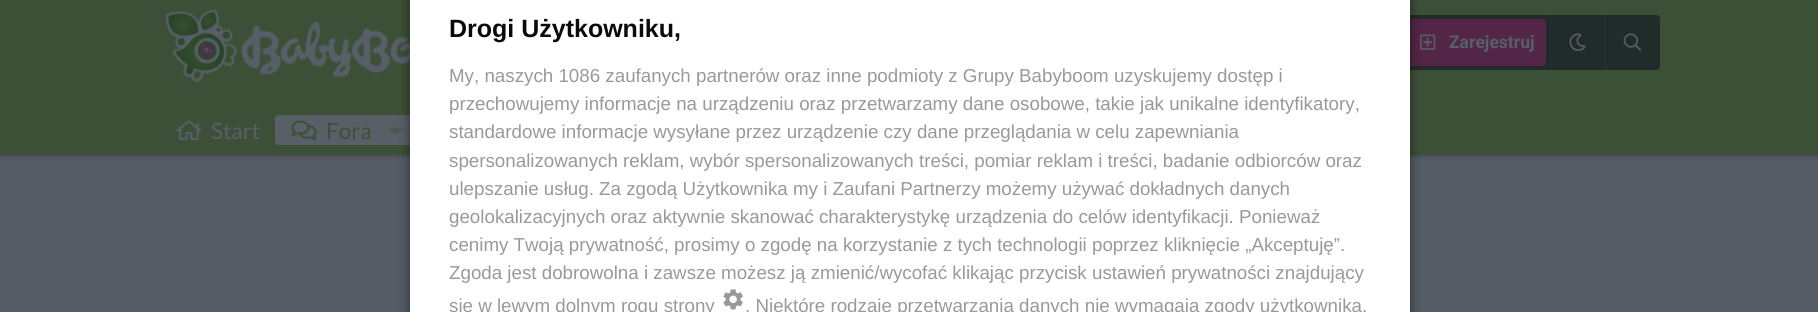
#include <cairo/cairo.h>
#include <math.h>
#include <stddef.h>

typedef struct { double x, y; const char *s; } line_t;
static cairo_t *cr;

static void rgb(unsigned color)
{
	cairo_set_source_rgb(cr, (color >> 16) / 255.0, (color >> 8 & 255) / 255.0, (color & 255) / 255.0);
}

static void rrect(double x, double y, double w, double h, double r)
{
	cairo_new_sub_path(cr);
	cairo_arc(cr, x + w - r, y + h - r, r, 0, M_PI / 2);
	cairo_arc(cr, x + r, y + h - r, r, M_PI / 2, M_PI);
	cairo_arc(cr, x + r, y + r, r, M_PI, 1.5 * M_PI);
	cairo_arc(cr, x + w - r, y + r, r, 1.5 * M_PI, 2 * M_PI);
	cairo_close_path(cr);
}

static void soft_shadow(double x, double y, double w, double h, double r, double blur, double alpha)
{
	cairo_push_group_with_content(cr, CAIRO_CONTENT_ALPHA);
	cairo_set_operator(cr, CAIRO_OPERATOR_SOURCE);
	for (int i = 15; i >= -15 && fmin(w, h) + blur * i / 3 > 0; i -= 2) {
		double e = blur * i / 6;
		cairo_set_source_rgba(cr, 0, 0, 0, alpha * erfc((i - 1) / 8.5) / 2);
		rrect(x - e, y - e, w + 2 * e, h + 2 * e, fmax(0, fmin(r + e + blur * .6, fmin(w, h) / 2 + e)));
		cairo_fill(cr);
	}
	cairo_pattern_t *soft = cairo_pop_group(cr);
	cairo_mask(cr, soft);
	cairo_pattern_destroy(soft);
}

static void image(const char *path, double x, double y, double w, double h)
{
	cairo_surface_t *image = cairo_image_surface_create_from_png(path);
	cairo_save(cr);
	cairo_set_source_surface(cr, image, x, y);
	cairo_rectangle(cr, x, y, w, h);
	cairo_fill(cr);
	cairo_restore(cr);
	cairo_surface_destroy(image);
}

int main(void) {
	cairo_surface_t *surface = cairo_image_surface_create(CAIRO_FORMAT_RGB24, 1818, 312);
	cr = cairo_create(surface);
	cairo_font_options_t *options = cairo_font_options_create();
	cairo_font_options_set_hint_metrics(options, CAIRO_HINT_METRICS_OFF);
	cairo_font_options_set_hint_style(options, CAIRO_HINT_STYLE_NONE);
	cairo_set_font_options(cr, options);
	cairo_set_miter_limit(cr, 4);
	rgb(0x565c65);
	cairo_paint(cr);
	rgb(0x191f27);
	soft_shadow(0, 1, 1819, 155, 0, 2, 0.35);
	rgb(0x3c5037);
	cairo_rectangle(cr, 0, 0, 1818, 155);
	cairo_fill(cr);
	image("img/2.png", 165, 9, 245, 74);
	rgb(0x2a382f);
	rrect(1279, 15, 381, 55, 4);
	cairo_fill(cr);
	cairo_set_source_rgba(cr, 0.098, 0.122, 0.153, 0.5);
	rrect(1279, 15, 381, 55, 4);
	cairo_fill(cr);
	rgb(0x532546);
	rrect(1405, 19, 141, 47, 4);
	cairo_fill(cr);
	image("img/3.png", 1420, 34, 16, 16);
	rgb(0x595f67);
	rrect(275, 115, 139, 30, 4);
	cairo_fill(cr);
	image("img/8.png", 389, 127, 14, 8);
	rgb(0x000000);
	soft_shadow(410, -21, 1000, 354, 2.5, 6, 0.5);
	rgb(0xffffff);
	cairo_rectangle(cr, 410, 0, 1000, 312);
	cairo_fill(cr);
	image("img/1.png", 723, 289, 20, 21);
	rgb(0x273031);
	cairo_rectangle(cr, 1550, 15, 1, 55);
	cairo_fill(cr);
	image("img/4.png", 1569, 33, 17, 18);
	cairo_rectangle(cr, 1605, 15, 1, 55);
	cairo_fill(cr);
	image("img/5.png", 1623, 33, 19, 18);
	image("img/6.png", 176, 120, 26, 21);
	image("img/7.png", 291, 120, 26, 21);
	cairo_select_font_face(cr, "Liberation Sans", CAIRO_FONT_SLANT_NORMAL, CAIRO_FONT_WEIGHT_BOLD);
	cairo_set_font_size(cr, 25);
	rgb(0x090a0a);
	cairo_move_to(cr, 449, 37);
	cairo_show_text(cr, "Drogi Użytkowniku,");
	cairo_select_font_face(cr, "Liberation Sans", CAIRO_FONT_SLANT_NORMAL, CAIRO_FONT_WEIGHT_NORMAL);
	cairo_set_font_size(cr, 18.75);
	rgb(0x999999);
	{
		static const line_t items[] = {
			{449, 82, "My, naszych 1086 zaufanych partnerów oraz inne podmioty z Grupy Babyboom uzyskujemy dostęp i"},
			{449, 110, "przechowujemy informacje na urządzeniu oraz przetwarzamy dane osobowe, takie jak unikalne identyfikatory,"},
			{449, 138, "standardowe informacje wysyłane przez urządzenie czy dane przeglądania w celu zapewniania"},
			{449, 167, "spersonalizowanych reklam, wybór spersonalizowanych treści, pomiar reklam i treści, badanie odbiorców oraz"},
			{449, 195, "ulepszanie usług. Za zgodą Użytkownika my i Zaufani Partnerzy możemy używać dokładnych danych"},
			{449, 223, "geolokalizacyjnych oraz aktywnie skanować charakterystykę urządzenia do celów identyfikacji. Ponieważ"},
			{449, 251, "cenimy Twoją prywatność, prosimy o zgodę na korzystanie z tych technologii poprzez kliknięcie „Akceptuję”."},
			{449, 279, "Zgoda jest dobrowolna i zawsze możesz ją zmienić/wycofać klikając przycisk ustawień prywatności znajdujący"},
			{449, 312, "się w lewym dolnym rogu strony"},
			{745, 312, ". Niektóre rodzaje przetwarzania danych nie wymagają zgody użytkownika,"},
		};
		for (size_t i = 0; i < sizeof items / sizeof *items; i++) {
			cairo_move_to(cr, items[i].x, items[i].y);
			cairo_show_text(cr, items[i].s);
		}
	}
	cairo_select_font_face(cr, "Roboto", CAIRO_FONT_SLANT_NORMAL, CAIRO_FONT_WEIGHT_BOLD);
	cairo_set_font_size(cr, 17.5);
	rgb(0x595f67);
	cairo_move_to(cr, 1449, 48);
	cairo_show_text(cr, "Zarejestruj");
	cairo_select_font_face(cr, "Lato", CAIRO_FONT_SLANT_NORMAL, CAIRO_FONT_WEIGHT_NORMAL);
	cairo_set_font_size(cr, 22.5);
	cairo_move_to(cr, 211, 139);
	cairo_show_text(cr, "Start");
	rgb(0x3c5037);
	cairo_move_to(cr, 326, 139);
	cairo_show_text(cr, "Fora");
	cairo_surface_write_to_png(surface, "page.png");
	cairo_font_options_destroy(options);
	cairo_destroy(cr);
	cairo_surface_destroy(surface);
	return 0;
}
